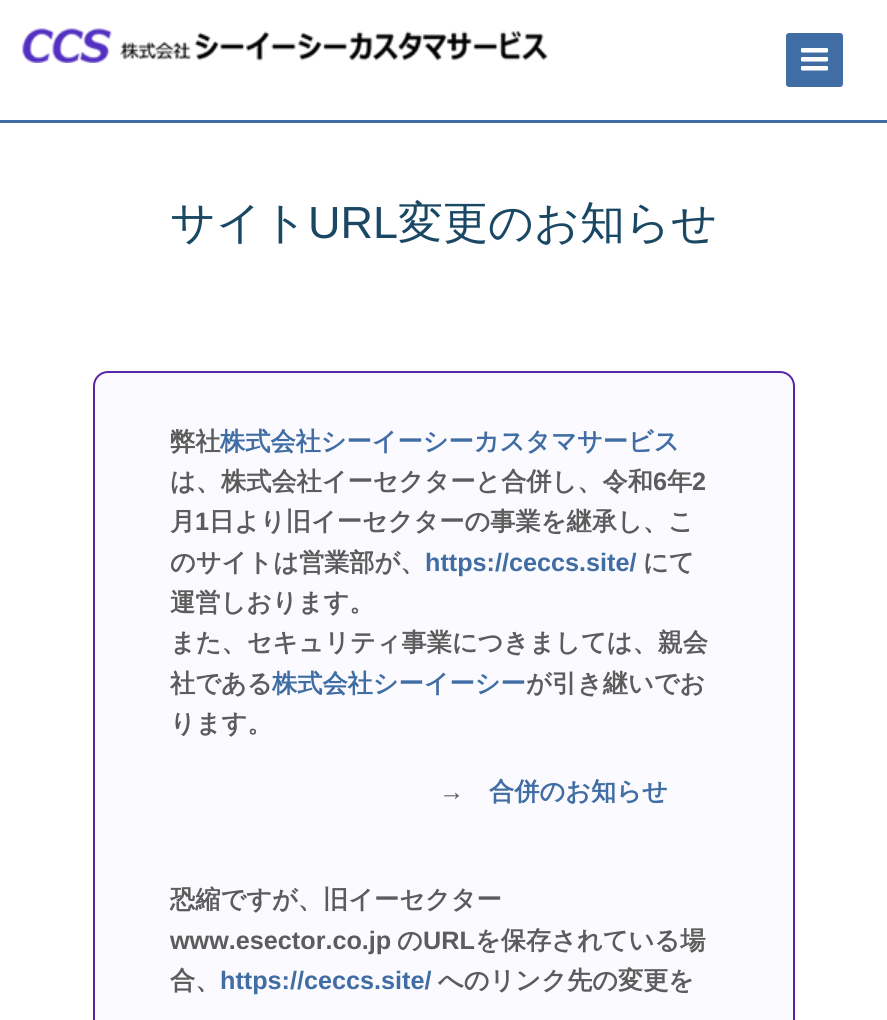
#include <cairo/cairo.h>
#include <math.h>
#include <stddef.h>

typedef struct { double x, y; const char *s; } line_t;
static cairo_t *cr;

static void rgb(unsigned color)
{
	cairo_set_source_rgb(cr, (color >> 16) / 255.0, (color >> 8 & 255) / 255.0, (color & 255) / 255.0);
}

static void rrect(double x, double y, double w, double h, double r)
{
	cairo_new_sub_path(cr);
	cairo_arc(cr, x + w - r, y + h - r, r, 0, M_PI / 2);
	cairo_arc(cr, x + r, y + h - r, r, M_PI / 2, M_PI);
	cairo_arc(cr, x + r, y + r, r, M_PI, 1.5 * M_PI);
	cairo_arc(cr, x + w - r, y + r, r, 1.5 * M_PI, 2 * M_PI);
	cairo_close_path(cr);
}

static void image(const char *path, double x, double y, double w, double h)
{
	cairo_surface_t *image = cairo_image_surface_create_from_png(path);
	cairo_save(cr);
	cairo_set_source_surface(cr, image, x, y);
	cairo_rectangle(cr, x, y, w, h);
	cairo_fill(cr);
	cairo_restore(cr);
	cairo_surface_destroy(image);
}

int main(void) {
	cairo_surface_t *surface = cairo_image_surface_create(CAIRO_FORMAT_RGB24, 887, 1020);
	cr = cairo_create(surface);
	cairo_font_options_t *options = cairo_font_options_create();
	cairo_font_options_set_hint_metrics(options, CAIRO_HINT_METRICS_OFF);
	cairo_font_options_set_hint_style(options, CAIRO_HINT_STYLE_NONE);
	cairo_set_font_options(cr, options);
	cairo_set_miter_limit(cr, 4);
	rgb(0xffffff);
	cairo_paint(cr);
	rgb(0x406da4);
	cairo_rectangle(cr, 0, 120, 887, 3);
	cairo_fill(cr);
	image("img/1.png", 22, 28, 526, 35);
	rrect(786, 33, 57, 54, 3);
	cairo_fill(cr);
	image("img/2.png", 801, 48, 27, 23);
	rgb(0xfbfafe);
	rrect(94, 372, 700, 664, 14);
	cairo_fill_preserve(cr);
	rgb(0x5826a8);
	cairo_stroke(cr);
	cairo_select_font_face(cr, "WenQuanYi Zen Hei Medium", CAIRO_FONT_SLANT_NORMAL, CAIRO_FONT_WEIGHT_NORMAL);
	cairo_set_font_size(cr, 45);
	rgb(0x1a4864);
	cairo_move_to(cr, 170, 238);
	cairo_show_text(cr, "サイト");
	cairo_select_font_face(cr, "Liberation Sans", CAIRO_FONT_SLANT_NORMAL, CAIRO_FONT_WEIGHT_NORMAL);
	cairo_move_to(cr, 308, 238);
	cairo_show_text(cr, "URL");
	cairo_select_font_face(cr, "WenQuanYi Zen Hei Medium", CAIRO_FONT_SLANT_NORMAL, CAIRO_FONT_WEIGHT_NORMAL);
	cairo_move_to(cr, 398, 238);
	cairo_show_text(cr, "変更のお知らせ");
	cairo_select_font_face(cr, "WenQuanYi Zen Hei", CAIRO_FONT_SLANT_NORMAL, CAIRO_FONT_WEIGHT_BOLD);
	cairo_set_font_size(cr, 25.2);
	rgb(0x5c5c5c);
	cairo_move_to(cr, 170, 450);
	cairo_show_text(cr, "弊社");
	rgb(0x406da4);
	cairo_move_to(cr, 220, 450);
	cairo_show_text(cr, "株式会社シーイーシーカスタマサービス");
	rgb(0x5c5c5c);
	cairo_move_to(cr, 170, 490);
	cairo_show_text(cr, "は、株式会社イーセクターと合併し、令和");
	cairo_select_font_face(cr, "Liberation Sans", CAIRO_FONT_SLANT_NORMAL, CAIRO_FONT_WEIGHT_BOLD);
	cairo_move_to(cr, 653, 490);
	cairo_show_text(cr, "6");
	cairo_select_font_face(cr, "WenQuanYi Zen Hei", CAIRO_FONT_SLANT_NORMAL, CAIRO_FONT_WEIGHT_BOLD);
	cairo_move_to(cr, 667, 490);
	cairo_show_text(cr, "年");
	cairo_select_font_face(cr, "Liberation Sans", CAIRO_FONT_SLANT_NORMAL, CAIRO_FONT_WEIGHT_BOLD);
	cairo_move_to(cr, 692, 490);
	cairo_show_text(cr, "2");
	cairo_select_font_face(cr, "WenQuanYi Zen Hei", CAIRO_FONT_SLANT_NORMAL, CAIRO_FONT_WEIGHT_BOLD);
	cairo_move_to(cr, 170, 530);
	cairo_show_text(cr, "月");
	cairo_select_font_face(cr, "Liberation Sans", CAIRO_FONT_SLANT_NORMAL, CAIRO_FONT_WEIGHT_BOLD);
	cairo_move_to(cr, 195, 530);
	cairo_show_text(cr, "1");
	cairo_select_font_face(cr, "WenQuanYi Zen Hei", CAIRO_FONT_SLANT_NORMAL, CAIRO_FONT_WEIGHT_BOLD);
	cairo_move_to(cr, 209, 530);
	cairo_show_text(cr, "日より旧イーセクターの事業を継承し、こ");
	cairo_move_to(cr, 170, 571);
	cairo_show_text(cr, "のサイトは営業部が、");
	cairo_select_font_face(cr, "Liberation Sans", CAIRO_FONT_SLANT_NORMAL, CAIRO_FONT_WEIGHT_BOLD);
	rgb(0x406da4);
	cairo_move_to(cr, 425, 571);
	cairo_show_text(cr, "https://ceccs.site/");
	cairo_select_font_face(cr, "WenQuanYi Zen Hei", CAIRO_FONT_SLANT_NORMAL, CAIRO_FONT_WEIGHT_BOLD);
	rgb(0x5c5c5c);
	{
		static const line_t items[] = {
			{643, 571, "にて"},
			{170, 611, "運営しおります。"},
			{170, 651, "また、セキュリティ事業につきましては、親会"},
			{170, 692, "社である"},
		};
		for (size_t i = 0; i < sizeof items / sizeof *items; i++) {
			cairo_move_to(cr, items[i].x, items[i].y);
			cairo_show_text(cr, items[i].s);
		}
	}
	rgb(0x406da4);
	cairo_move_to(cr, 272, 692);
	cairo_show_text(cr, "株式会社シーイーシー");
	rgb(0x5c5c5c);
	cairo_move_to(cr, 526, 692);
	cairo_show_text(cr, "が引き継いでお");
	cairo_move_to(cr, 170, 732);
	cairo_show_text(cr, "ります。");
	cairo_select_font_face(cr, "Liberation Sans", CAIRO_FONT_SLANT_NORMAL, CAIRO_FONT_WEIGHT_BOLD);
	cairo_move_to(cr, 439, 800);
	cairo_show_text(cr, "→");
	cairo_select_font_face(cr, "WenQuanYi Zen Hei", CAIRO_FONT_SLANT_NORMAL, CAIRO_FONT_WEIGHT_BOLD);
	rgb(0x406da4);
	cairo_move_to(cr, 489, 800);
	cairo_show_text(cr, "合併のお知らせ");
	rgb(0x5c5c5c);
	cairo_move_to(cr, 170, 908);
	cairo_show_text(cr, "恐縮ですが、旧イーセクター");
	cairo_select_font_face(cr, "Liberation Sans", CAIRO_FONT_SLANT_NORMAL, CAIRO_FONT_WEIGHT_BOLD);
	cairo_move_to(cr, 170, 949);
	cairo_show_text(cr, "www.esector.co.jp");
	cairo_select_font_face(cr, "WenQuanYi Zen Hei", CAIRO_FONT_SLANT_NORMAL, CAIRO_FONT_WEIGHT_BOLD);
	cairo_move_to(cr, 397, 949);
	cairo_show_text(cr, "の");
	cairo_select_font_face(cr, "Liberation Sans", CAIRO_FONT_SLANT_NORMAL, CAIRO_FONT_WEIGHT_BOLD);
	cairo_move_to(cr, 423, 949);
	cairo_show_text(cr, "URL");
	cairo_select_font_face(cr, "WenQuanYi Zen Hei", CAIRO_FONT_SLANT_NORMAL, CAIRO_FONT_WEIGHT_BOLD);
	cairo_move_to(cr, 475, 949);
	cairo_show_text(cr, "を保存されている場");
	cairo_move_to(cr, 170, 989);
	cairo_show_text(cr, "合、");
	cairo_select_font_face(cr, "Liberation Sans", CAIRO_FONT_SLANT_NORMAL, CAIRO_FONT_WEIGHT_BOLD);
	rgb(0x406da4);
	cairo_move_to(cr, 220, 989);
	cairo_show_text(cr, "https://ceccs.site/");
	cairo_select_font_face(cr, "WenQuanYi Zen Hei", CAIRO_FONT_SLANT_NORMAL, CAIRO_FONT_WEIGHT_BOLD);
	rgb(0x5c5c5c);
	cairo_move_to(cr, 438, 989);
	cairo_show_text(cr, "へのリンク先の変更を");
	cairo_surface_write_to_png(surface, "page.png");
	cairo_font_options_destroy(options);
	cairo_destroy(cr);
	cairo_surface_destroy(surface);
	return 0;
}
